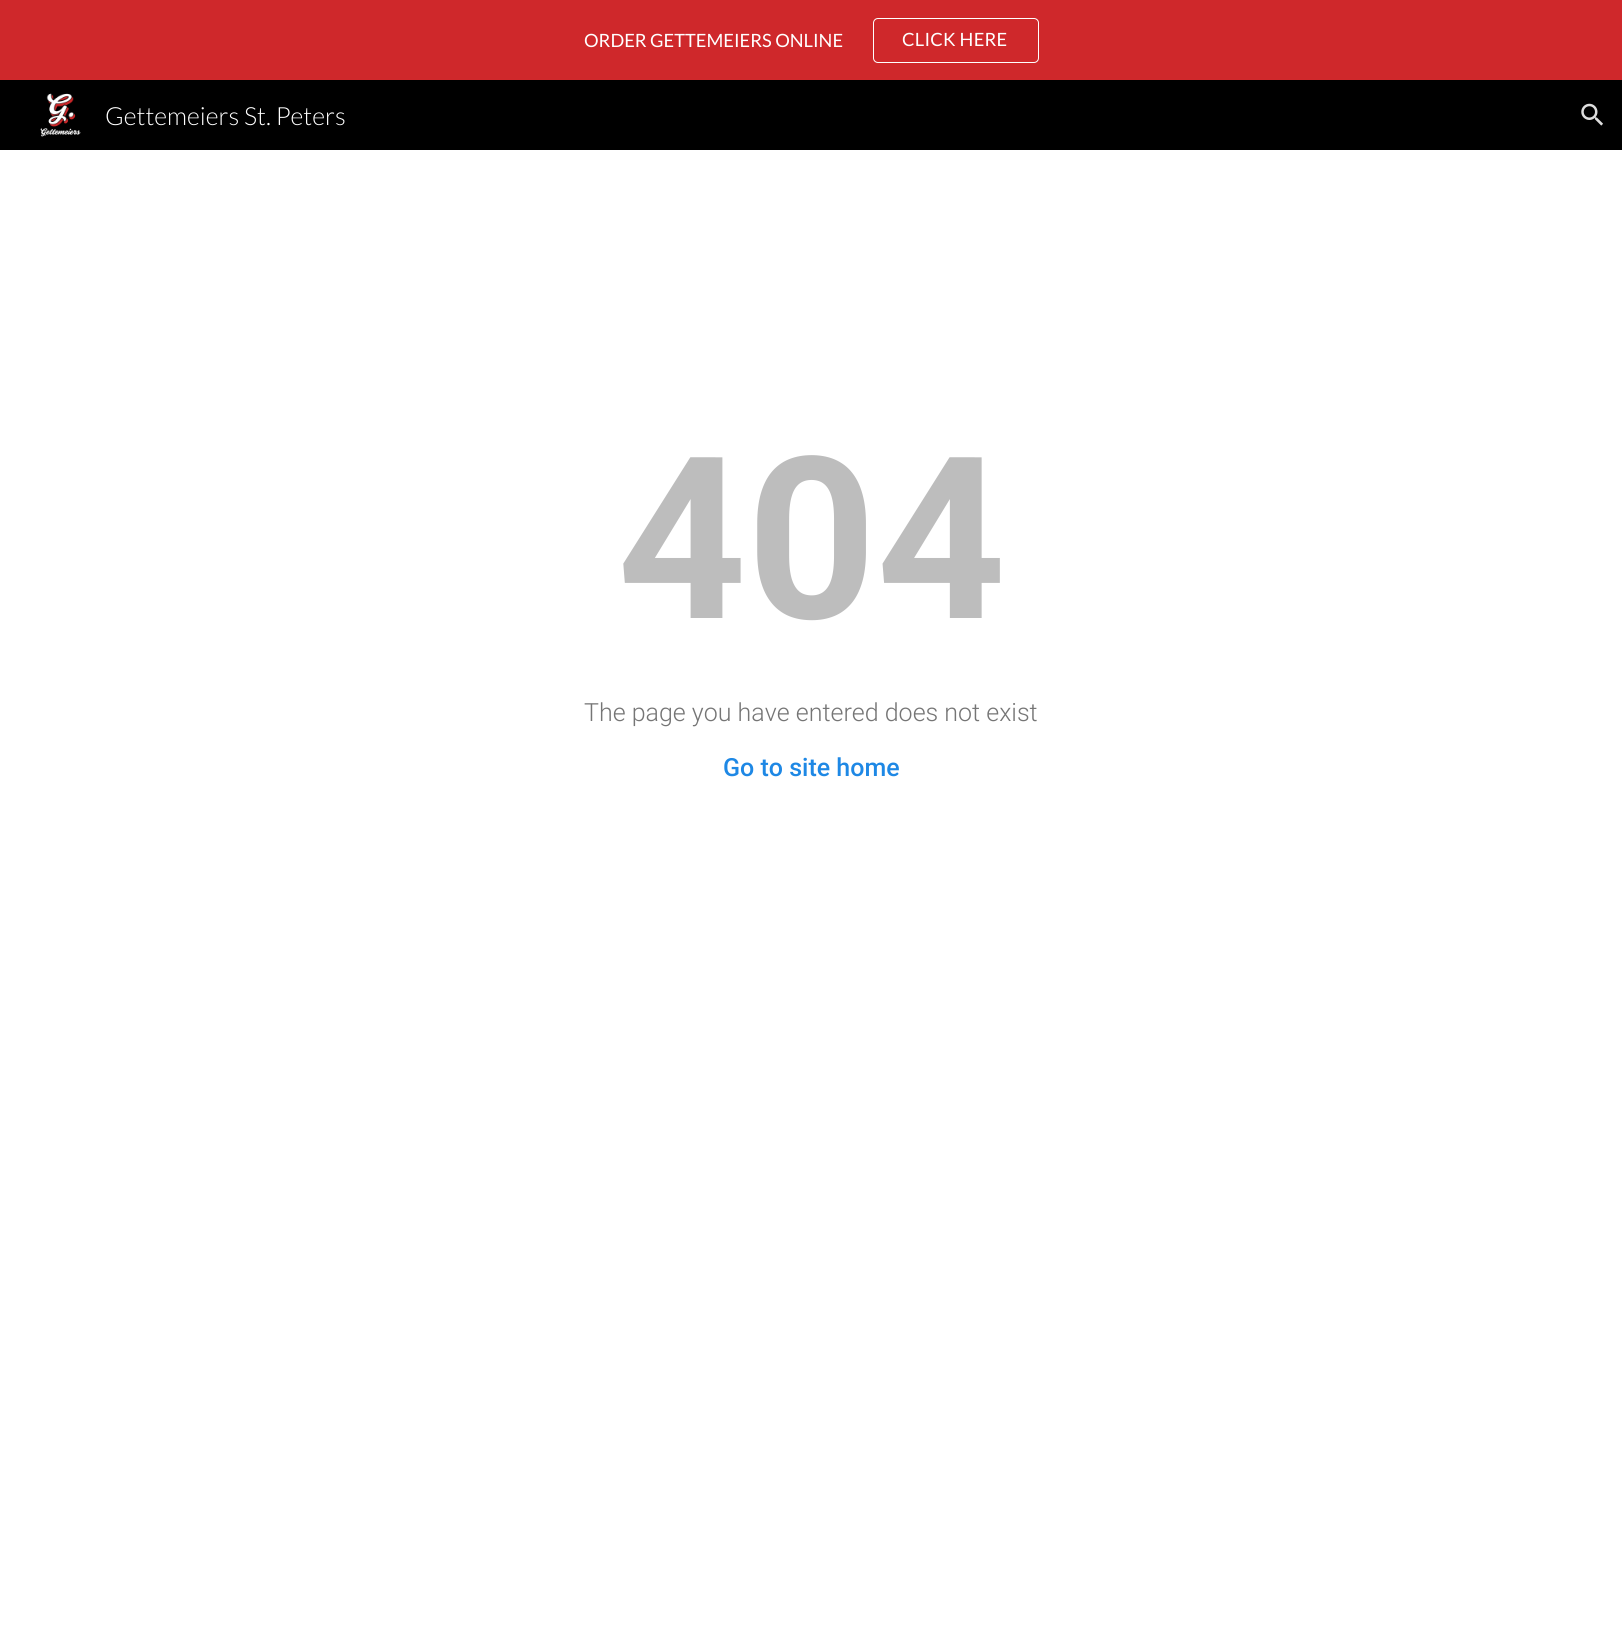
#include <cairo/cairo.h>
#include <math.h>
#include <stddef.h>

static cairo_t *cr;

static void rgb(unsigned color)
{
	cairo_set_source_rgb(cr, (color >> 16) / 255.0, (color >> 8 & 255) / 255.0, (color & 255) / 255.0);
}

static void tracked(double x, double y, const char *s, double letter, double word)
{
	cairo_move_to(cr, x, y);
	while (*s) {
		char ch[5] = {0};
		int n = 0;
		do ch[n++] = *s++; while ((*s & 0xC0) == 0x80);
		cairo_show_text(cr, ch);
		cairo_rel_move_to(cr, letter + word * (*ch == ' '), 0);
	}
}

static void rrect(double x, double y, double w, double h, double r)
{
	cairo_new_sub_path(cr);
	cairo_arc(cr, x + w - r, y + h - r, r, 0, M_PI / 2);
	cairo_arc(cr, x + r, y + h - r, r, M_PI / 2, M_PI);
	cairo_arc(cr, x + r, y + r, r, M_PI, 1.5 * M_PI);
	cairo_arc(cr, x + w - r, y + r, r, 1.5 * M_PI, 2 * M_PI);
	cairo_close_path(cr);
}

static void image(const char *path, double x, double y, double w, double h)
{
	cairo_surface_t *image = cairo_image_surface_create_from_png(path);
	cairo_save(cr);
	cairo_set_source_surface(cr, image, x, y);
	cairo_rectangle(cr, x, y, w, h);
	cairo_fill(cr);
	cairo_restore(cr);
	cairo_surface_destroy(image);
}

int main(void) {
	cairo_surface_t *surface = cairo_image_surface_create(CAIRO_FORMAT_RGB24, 1622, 1626);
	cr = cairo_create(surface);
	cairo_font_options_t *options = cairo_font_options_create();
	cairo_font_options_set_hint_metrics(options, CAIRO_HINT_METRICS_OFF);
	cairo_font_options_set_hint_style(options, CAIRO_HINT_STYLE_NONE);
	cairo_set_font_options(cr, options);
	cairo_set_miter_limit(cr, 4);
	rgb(0xffffff);
	cairo_paint(cr);
	rgb(0xcf282b);
	cairo_rectangle(cr, 0, 0, 1622, 80);
	cairo_fill(cr);
	rrect(873.5, 18.5, 165, 44, 4.5);
	rgb(0xffffff);
	cairo_set_line_width(cr, 1);
	cairo_stroke(cr);
	rgb(0x000000);
	cairo_rectangle(cr, 0, 80, 1622, 70);
	cairo_fill(cr);
	image("img/1.png", 40, 93, 41, 44);
	image("img/2.png", 1581, 103, 22, 23);
	cairo_select_font_face(cr, "Lato", CAIRO_FONT_SLANT_NORMAL, CAIRO_FONT_WEIGHT_NORMAL);
	cairo_set_font_size(cr, 18.3);
	rgb(0xffffff);
	cairo_move_to(cr, 584, 47);
	cairo_show_text(cr, "ORDER GETTEMEIERS ONLINE");
	tracked(902, 46, "CLICK HERE", 0.25, 0);
	cairo_select_font_face(cr, "Lato Light", CAIRO_FONT_SLANT_NORMAL, CAIRO_FONT_WEIGHT_NORMAL);
	cairo_set_font_size(cr, 25);
	cairo_move_to(cr, 105, 125);
	cairo_show_text(cr, "Gettemeiers St. Peters");
	cairo_select_font_face(cr, "Roboto", CAIRO_FONT_SLANT_NORMAL, CAIRO_FONT_WEIGHT_BOLD);
	cairo_set_font_size(cr, 226);
	rgb(0xbdbdbd);
	cairo_move_to(cr, 617, 618);
	cairo_show_text(cr, "404");
	cairo_select_font_face(cr, "Roboto Light", CAIRO_FONT_SLANT_NORMAL, CAIRO_FONT_WEIGHT_NORMAL);
	cairo_set_font_size(cr, 25);
	rgb(0x757575);
	cairo_move_to(cr, 584, 721);
	cairo_show_text(cr, "The page you have entered does not exist");
	cairo_select_font_face(cr, "Roboto Medium", CAIRO_FONT_SLANT_NORMAL, CAIRO_FONT_WEIGHT_NORMAL);
	rgb(0x1e88e5);
	cairo_move_to(cr, 723, 776);
	cairo_show_text(cr, "Go to site home");
	cairo_surface_write_to_png(surface, "page.png");
	cairo_font_options_destroy(options);
	cairo_destroy(cr);
	cairo_surface_destroy(surface);
	return 0;
}
